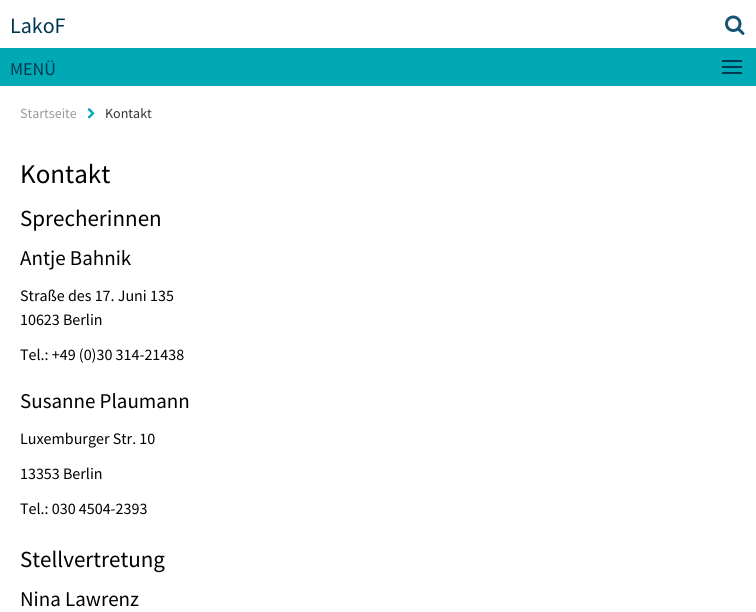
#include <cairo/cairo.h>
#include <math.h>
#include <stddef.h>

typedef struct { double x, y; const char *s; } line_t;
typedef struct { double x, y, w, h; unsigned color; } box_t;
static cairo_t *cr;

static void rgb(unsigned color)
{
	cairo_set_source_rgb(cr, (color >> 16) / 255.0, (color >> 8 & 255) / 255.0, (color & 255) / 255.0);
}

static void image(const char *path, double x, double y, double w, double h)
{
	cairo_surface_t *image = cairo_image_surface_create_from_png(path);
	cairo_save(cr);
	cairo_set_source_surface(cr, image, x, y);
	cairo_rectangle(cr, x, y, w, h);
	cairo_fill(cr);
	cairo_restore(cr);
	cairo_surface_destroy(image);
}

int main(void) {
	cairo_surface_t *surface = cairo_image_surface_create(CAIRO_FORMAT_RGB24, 756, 612);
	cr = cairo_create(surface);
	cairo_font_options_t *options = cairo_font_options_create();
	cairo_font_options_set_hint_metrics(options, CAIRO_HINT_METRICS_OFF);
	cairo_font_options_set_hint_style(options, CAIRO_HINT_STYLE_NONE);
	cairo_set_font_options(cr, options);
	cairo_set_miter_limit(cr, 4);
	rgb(0xffffff);
	cairo_paint(cr);
	image("img/1.png", 725, 15, 20, 20);
	{
		static const box_t items[] = {
			{0, 48, 756, 38, 0x00a9b3},
			{722, 60, 20, 2, 0x003750},
			{722, 66, 20, 2, 0x003750},
			{722, 72, 20, 2, 0x003750},
		};
		for (size_t i = 0; i < sizeof items / sizeof *items; i++) {
			rgb(items[i].color);
			cairo_rectangle(cr, items[i].x, items[i].y, items[i].w, items[i].h);
			cairo_fill(cr);
		}
	}
	image("img/2.png", 87, 108, 8, 11);
	cairo_select_font_face(cr, "Source Sans Pro", CAIRO_FONT_SLANT_NORMAL, CAIRO_FONT_WEIGHT_NORMAL);
	cairo_set_font_size(cr, 22);
	cairo_move_to(cr, 10, 33);
	cairo_show_text(cr, "LakoF");
	cairo_set_font_size(cr, 18);
	cairo_move_to(cr, 10, 75);
	cairo_show_text(cr, "MENÜ");
	cairo_set_font_size(cr, 14);
	rgb(0x999999);
	cairo_move_to(cr, 20, 118);
	cairo_show_text(cr, "Startseite");
	rgb(0x333333);
	cairo_move_to(cr, 105, 118);
	cairo_show_text(cr, "Kontakt");
	cairo_set_font_size(cr, 27);
	rgb(0x000000);
	cairo_move_to(cr, 20, 183);
	cairo_show_text(cr, "Kontakt");
	cairo_set_font_size(cr, 23);
	cairo_move_to(cr, 20, 226);
	cairo_show_text(cr, "Sprecherinnen");
	cairo_set_font_size(cr, 21);
	cairo_move_to(cr, 20, 265);
	cairo_show_text(cr, "Antje Bahnik");
	cairo_set_font_size(cr, 16);
	{
		static const line_t items[] = {
			{20, 301, "Straße des 17. Juni 135"},
			{20, 325, "10623 Berlin"},
			{20, 360, "Tel.: +49 (0)30 314-21438"},
		};
		for (size_t i = 0; i < sizeof items / sizeof *items; i++) {
			cairo_move_to(cr, items[i].x, items[i].y);
			cairo_show_text(cr, items[i].s);
		}
	}
	cairo_set_font_size(cr, 21);
	cairo_move_to(cr, 20, 408);
	cairo_show_text(cr, "Susanne Plaumann");
	cairo_set_font_size(cr, 16);
	{
		static const line_t items[] = {
			{20, 444, "Luxemburger Str. 10"},
			{20, 479, "13353 Berlin"},
			{20, 514, "Tel.: 030 4504-2393"},
		};
		for (size_t i = 0; i < sizeof items / sizeof *items; i++) {
			cairo_move_to(cr, items[i].x, items[i].y);
			cairo_show_text(cr, items[i].s);
		}
	}
	cairo_set_font_size(cr, 23);
	cairo_move_to(cr, 20, 567);
	cairo_show_text(cr, "Stellvertretung");
	cairo_set_font_size(cr, 21);
	cairo_move_to(cr, 20, 606);
	cairo_show_text(cr, "Nina Lawrenz");
	cairo_surface_write_to_png(surface, "page.png");
	cairo_font_options_destroy(options);
	cairo_destroy(cr);
	cairo_surface_destroy(surface);
	return 0;
}
